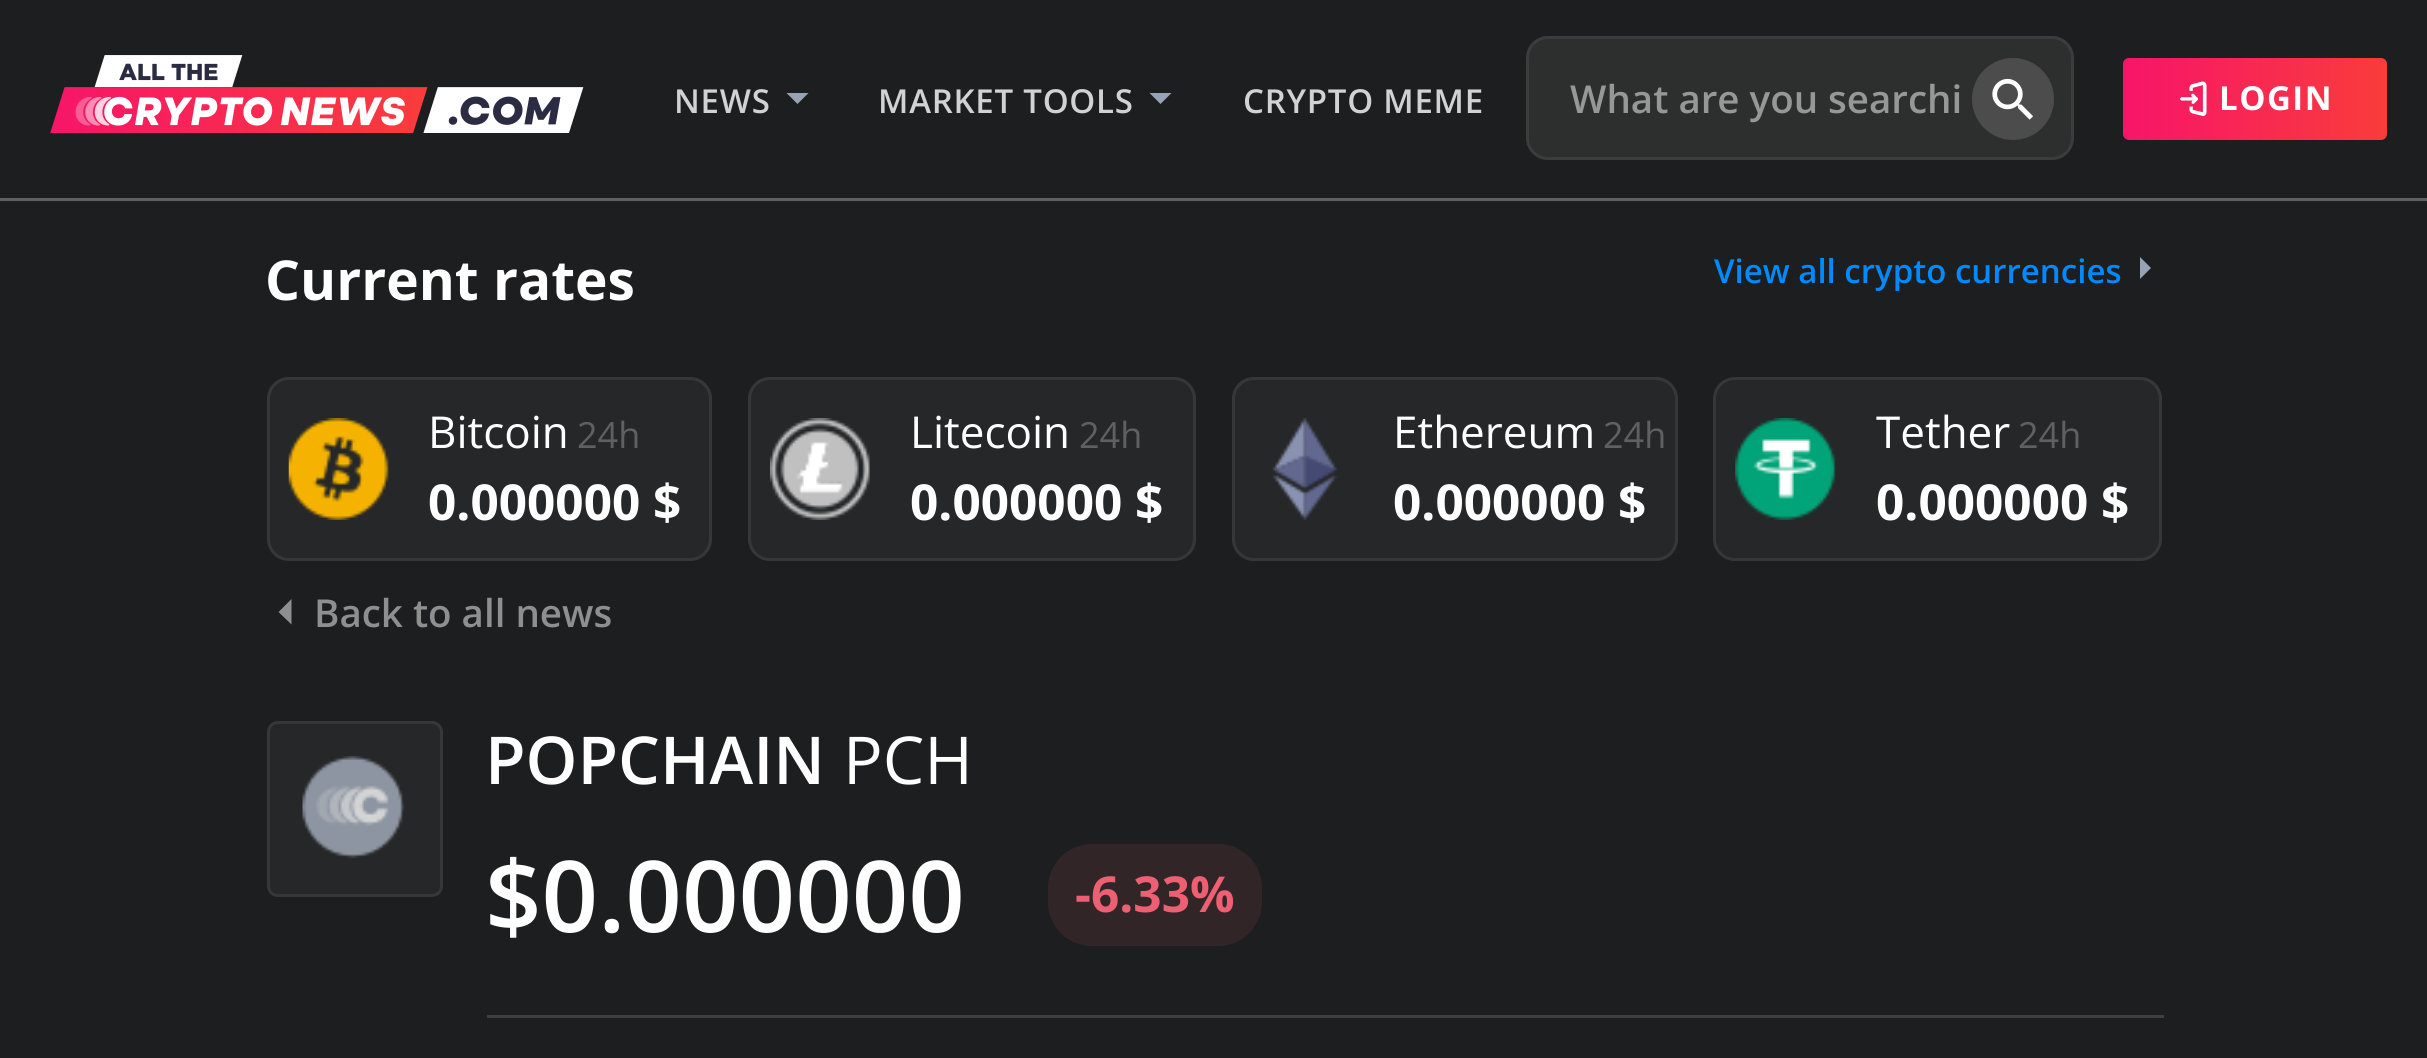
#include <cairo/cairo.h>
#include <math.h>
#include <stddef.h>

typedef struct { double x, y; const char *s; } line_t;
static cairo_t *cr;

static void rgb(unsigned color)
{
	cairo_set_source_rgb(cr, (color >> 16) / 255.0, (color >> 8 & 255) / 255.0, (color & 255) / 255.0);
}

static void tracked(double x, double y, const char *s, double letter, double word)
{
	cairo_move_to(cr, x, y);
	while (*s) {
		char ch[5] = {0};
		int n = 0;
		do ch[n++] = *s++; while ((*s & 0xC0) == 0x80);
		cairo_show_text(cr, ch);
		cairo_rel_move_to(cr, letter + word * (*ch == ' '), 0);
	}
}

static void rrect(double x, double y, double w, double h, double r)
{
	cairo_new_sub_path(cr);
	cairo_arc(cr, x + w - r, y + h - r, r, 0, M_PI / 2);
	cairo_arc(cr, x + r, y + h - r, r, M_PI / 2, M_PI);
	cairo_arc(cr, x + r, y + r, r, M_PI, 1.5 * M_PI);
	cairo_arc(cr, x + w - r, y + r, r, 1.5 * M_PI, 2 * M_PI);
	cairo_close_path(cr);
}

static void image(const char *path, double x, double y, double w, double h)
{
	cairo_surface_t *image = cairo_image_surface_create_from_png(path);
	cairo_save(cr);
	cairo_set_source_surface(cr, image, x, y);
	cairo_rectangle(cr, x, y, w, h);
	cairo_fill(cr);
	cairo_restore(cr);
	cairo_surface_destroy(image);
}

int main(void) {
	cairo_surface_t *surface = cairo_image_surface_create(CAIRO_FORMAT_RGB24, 2427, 1058);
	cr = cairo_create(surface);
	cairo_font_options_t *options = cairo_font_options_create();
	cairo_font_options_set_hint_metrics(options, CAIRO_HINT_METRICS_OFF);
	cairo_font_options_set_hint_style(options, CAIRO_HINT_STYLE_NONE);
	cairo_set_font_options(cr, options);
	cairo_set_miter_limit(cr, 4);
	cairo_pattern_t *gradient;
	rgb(0x1d1e1f);
	cairo_paint(cr);
	rgb(0x5f5f60);
	cairo_rectangle(cr, 0, 198, 2427, 3);
	cairo_fill(cr);
	image("img/1.png", 50, 55, 534, 78);
	rgb(0x97a3b4);
	cairo_new_path(cr);
	cairo_move_to(cr, 786.5, 93);
	cairo_line_to(cr, 797.5, 104);
	cairo_line_to(cr, 808.5, 93);
	cairo_close_path(cr);
	cairo_fill(cr);
	cairo_new_path(cr);
	cairo_move_to(cr, 1149.5, 93);
	cairo_line_to(cr, 1160.5, 104);
	cairo_line_to(cr, 1171.5, 93);
	cairo_close_path(cr);
	cairo_fill(cr);
	rgb(0x2d2e2e);
	rrect(1526, 36, 548, 124, 22);
	cairo_fill(cr);
	rrect(1527.5, 37.5, 545, 121, 20.5);
	cairo_set_source_rgba(cr, 0.373, 0.373, 0.373, 0.3);
	cairo_set_line_width(cr, 3);
	cairo_stroke(cr);
	rgb(0x4c4c4c);
	cairo_arc(cr, 2013, 99, 41, 0, 2 * M_PI);
	cairo_fill(cr);
	image("img/2.png", 1992, 78, 41, 42);
	gradient = cairo_pattern_create_linear(2123, 99, 2387, 99);
	cairo_pattern_add_color_stop_rgba(gradient, 0, 0.969, 0.082, 0.412, 1);
	cairo_pattern_add_color_stop_rgba(gradient, 1, 0.976, 0.235, 0.231, 1);
	cairo_set_source(cr, gradient);
	cairo_pattern_destroy(gradient);
	rrect(2123, 58, 264, 82, 6);
	cairo_fill(cr);
	image("img/3.png", 2180, 81, 27, 35);
	rgb(0x97a3b4);
	cairo_new_path(cr);
	cairo_move_to(cr, 2140, 279);
	cairo_line_to(cr, 2151, 268);
	cairo_line_to(cr, 2140, 257);
	cairo_close_path(cr);
	cairo_fill(cr);
	rgb(0x262728);
	rrect(267, 377, 445, 184, 22);
	cairo_fill(cr);
	rrect(268.5, 378.5, 442, 181, 20.5);
	cairo_set_source_rgba(cr, 0.373, 0.373, 0.373, 0.3);
	cairo_stroke(cr);
	image("img/4.png", 288, 418, 101, 102);
	rgb(0x262728);
	rrect(748, 377, 448, 184, 22);
	cairo_fill(cr);
	rrect(749.5, 378.5, 445, 181, 20.5);
	cairo_set_source_rgba(cr, 0.373, 0.373, 0.373, 0.3);
	cairo_stroke(cr);
	image("img/5.png", 770, 418, 100, 102);
	rgb(0x262728);
	rrect(1232, 377, 446, 184, 22);
	cairo_fill(cr);
	rrect(1233.5, 378.5, 443, 181, 20.5);
	cairo_set_source_rgba(cr, 0.373, 0.373, 0.373, 0.3);
	cairo_stroke(cr);
	image("img/6.png", 1272, 418, 66, 102);
	rgb(0x262728);
	rrect(1713, 377, 449, 184, 22);
	cairo_fill(cr);
	rrect(1714.5, 378.5, 446, 181, 20.5);
	cairo_set_source_rgba(cr, 0.373, 0.373, 0.373, 0.3);
	cairo_stroke(cr);
	image("img/7.png", 1735, 418, 101, 102);
	rgb(0x8e8f8f);
	cairo_new_path(cr);
	cairo_move_to(cr, 291.5, 599);
	cairo_line_to(cr, 278.5, 612);
	cairo_line_to(cr, 291.5, 624.5);
	cairo_close_path(cr);
	cairo_fill(cr);
	rgb(0x262728);
	rrect(267, 721, 176, 176, 11);
	cairo_fill(cr);
	rrect(268.5, 722.5, 173, 173, 9.5);
	cairo_set_source_rgba(cr, 0.373, 0.373, 0.373, 0.3);
	cairo_stroke(cr);
	image("img/8.png", 302, 756, 103, 102);
	rgb(0x322527);
	rrect(1048, 844, 214, 102, 44);
	cairo_fill(cr);
	rgb(0x3f3f40);
	cairo_rectangle(cr, 487, 1015, 1677, 3);
	cairo_fill(cr);
	cairo_select_font_face(cr, "Open Sans SemiBold", CAIRO_FONT_SLANT_NORMAL, CAIRO_FONT_WEIGHT_NORMAL);
	cairo_set_font_size(cr, 33);
	rgb(0xd2d2d2);
	{
		static const line_t items[] = {
			{674, 113, "NEWS"},
			{878, 113, "MARKET TOOLS"},
			{1243, 113, "CRYPTO MEME"},
		};
		for (size_t i = 0; i < sizeof items / sizeof *items; i++) {
			tracked(items[i].x, items[i].y, items[i].s, 0.75, 0);
		}
	}
	cairo_set_font_size(cr, 38.5);
	rgb(0x969797);
	cairo_move_to(cr, 1570, 113);
	cairo_show_text(cr, "What are you searchi");
	cairo_select_font_face(cr, "Open Sans", CAIRO_FONT_SLANT_NORMAL, CAIRO_FONT_WEIGHT_BOLD);
	cairo_set_font_size(cr, 33);
	rgb(0xffffff);
	tracked(2219, 110, "LOGIN", 1.5, 0);
	cairo_set_font_size(cr, 55);
	cairo_move_to(cr, 265, 300);
	cairo_show_text(cr, "Current rates");
	cairo_select_font_face(cr, "Open Sans SemiBold", CAIRO_FONT_SLANT_NORMAL, CAIRO_FONT_WEIGHT_NORMAL);
	cairo_set_font_size(cr, 33);
	rgb(0x008aff);
	cairo_move_to(cr, 1714, 283);
	cairo_show_text(cr, "View all crypto currencies");
	cairo_select_font_face(cr, "Open Sans", CAIRO_FONT_SLANT_NORMAL, CAIRO_FONT_WEIGHT_NORMAL);
	cairo_set_font_size(cr, 44);
	rgb(0xffffff);
	cairo_move_to(cr, 428, 448);
	cairo_show_text(cr, "Bitcoin");
	cairo_set_font_size(cr, 36);
	rgb(0x606062);
	cairo_move_to(cr, 577, 448);
	cairo_show_text(cr, "24h");
	cairo_select_font_face(cr, "Open Sans", CAIRO_FONT_SLANT_NORMAL, CAIRO_FONT_WEIGHT_BOLD);
	cairo_set_font_size(cr, 49.5);
	rgb(0xffffff);
	cairo_move_to(cr, 428, 520);
	cairo_show_text(cr, "0.000000 $");
	cairo_select_font_face(cr, "Open Sans", CAIRO_FONT_SLANT_NORMAL, CAIRO_FONT_WEIGHT_NORMAL);
	cairo_set_font_size(cr, 44);
	cairo_move_to(cr, 910, 448);
	cairo_show_text(cr, "Litecoin");
	cairo_set_font_size(cr, 36);
	rgb(0x606062);
	cairo_move_to(cr, 1079, 448);
	cairo_show_text(cr, "24h");
	cairo_select_font_face(cr, "Open Sans", CAIRO_FONT_SLANT_NORMAL, CAIRO_FONT_WEIGHT_BOLD);
	cairo_set_font_size(cr, 49.5);
	rgb(0xffffff);
	cairo_move_to(cr, 910, 520);
	cairo_show_text(cr, "0.000000 $");
	cairo_select_font_face(cr, "Open Sans", CAIRO_FONT_SLANT_NORMAL, CAIRO_FONT_WEIGHT_NORMAL);
	cairo_set_font_size(cr, 44);
	cairo_move_to(cr, 1393, 448);
	cairo_show_text(cr, "Ethereum");
	cairo_set_font_size(cr, 36);
	rgb(0x606062);
	cairo_move_to(cr, 1603, 448);
	cairo_show_text(cr, "24h");
	cairo_select_font_face(cr, "Open Sans", CAIRO_FONT_SLANT_NORMAL, CAIRO_FONT_WEIGHT_BOLD);
	cairo_set_font_size(cr, 49.5);
	rgb(0xffffff);
	cairo_move_to(cr, 1393, 520);
	cairo_show_text(cr, "0.000000 $");
	cairo_save(cr);
	cairo_rectangle(cr, 1876, 399, 283, 66);
	cairo_clip(cr);
	cairo_select_font_face(cr, "Open Sans", CAIRO_FONT_SLANT_NORMAL, CAIRO_FONT_WEIGHT_NORMAL);
	cairo_set_font_size(cr, 44);
	cairo_move_to(cr, 1876, 448);
	cairo_show_text(cr, "Tether");
	cairo_restore(cr);
	cairo_select_font_face(cr, "Open Sans", CAIRO_FONT_SLANT_NORMAL, CAIRO_FONT_WEIGHT_NORMAL);
	cairo_set_font_size(cr, 36);
	rgb(0x606062);
	cairo_move_to(cr, 2018, 448);
	cairo_show_text(cr, "24h");
	cairo_select_font_face(cr, "Open Sans", CAIRO_FONT_SLANT_NORMAL, CAIRO_FONT_WEIGHT_BOLD);
	cairo_set_font_size(cr, 49.5);
	rgb(0xffffff);
	cairo_move_to(cr, 1876, 520);
	cairo_show_text(cr, "0.000000 $");
	cairo_select_font_face(cr, "Open Sans SemiBold", CAIRO_FONT_SLANT_NORMAL, CAIRO_FONT_WEIGHT_NORMAL);
	cairo_set_font_size(cr, 38.5);
	rgb(0x8e8f8f);
	cairo_move_to(cr, 314, 627);
	cairo_show_text(cr, "Back to all news");
	cairo_set_font_size(cr, 66);
	rgb(0xffffff);
	cairo_move_to(cr, 485, 784);
	cairo_show_text(cr, "POPCHAIN");
	cairo_select_font_face(cr, "Open Sans", CAIRO_FONT_SLANT_NORMAL, CAIRO_FONT_WEIGHT_NORMAL);
	cairo_move_to(cr, 843, 784);
	cairo_show_text(cr, "PCH");
	cairo_select_font_face(cr, "Open Sans SemiBold", CAIRO_FONT_SLANT_NORMAL, CAIRO_FONT_WEIGHT_NORMAL);
	cairo_set_font_size(cr, 99);
	cairo_move_to(cr, 485, 932);
	cairo_show_text(cr, "$0.000000");
	cairo_select_font_face(cr, "Open Sans", CAIRO_FONT_SLANT_NORMAL, CAIRO_FONT_WEIGHT_BOLD);
	cairo_set_font_size(cr, 49.5);
	rgb(0xed5f72);
	cairo_move_to(cr, 1075, 912);
	cairo_show_text(cr, "-6.33%");
	cairo_surface_write_to_png(surface, "page.png");
	cairo_font_options_destroy(options);
	cairo_destroy(cr);
	cairo_surface_destroy(surface);
	return 0;
}
